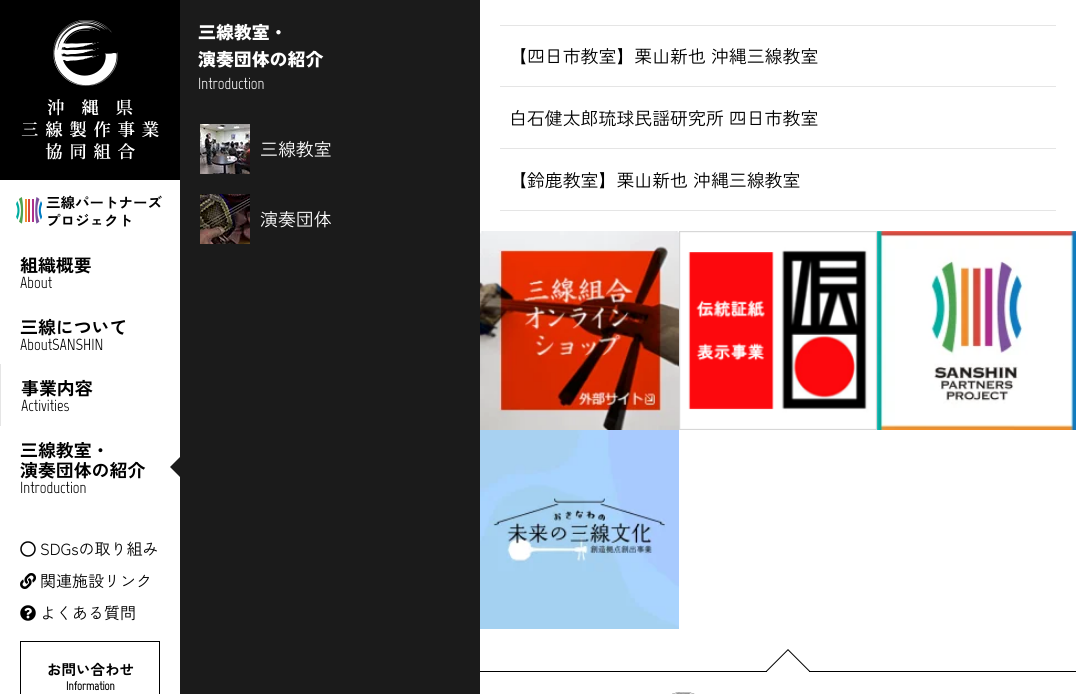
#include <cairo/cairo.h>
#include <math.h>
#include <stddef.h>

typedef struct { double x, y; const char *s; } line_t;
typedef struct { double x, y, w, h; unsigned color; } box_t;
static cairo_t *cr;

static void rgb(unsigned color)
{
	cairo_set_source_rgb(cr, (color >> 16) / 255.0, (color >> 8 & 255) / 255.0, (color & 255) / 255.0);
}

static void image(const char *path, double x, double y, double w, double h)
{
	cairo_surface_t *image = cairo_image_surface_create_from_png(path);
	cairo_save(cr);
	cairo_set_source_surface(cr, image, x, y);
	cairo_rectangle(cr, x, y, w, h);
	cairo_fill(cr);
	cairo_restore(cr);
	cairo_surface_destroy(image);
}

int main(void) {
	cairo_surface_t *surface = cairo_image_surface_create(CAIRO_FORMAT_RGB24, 1076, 694);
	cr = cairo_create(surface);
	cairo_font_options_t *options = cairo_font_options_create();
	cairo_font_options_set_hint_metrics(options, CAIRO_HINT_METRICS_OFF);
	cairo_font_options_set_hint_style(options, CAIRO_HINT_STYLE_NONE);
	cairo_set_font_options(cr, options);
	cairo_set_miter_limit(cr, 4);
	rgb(0xffffff);
	cairo_paint(cr);
	rgb(0x000000);
	cairo_rectangle(cr, 0, 0, 180, 180);
	cairo_fill(cr);
	image("img/1.png", 21, 20, 138, 140);
	rgb(0x1b1b1b);
	cairo_rectangle(cr, 180, 0, 300, 694);
	cairo_fill(cr);
	image("img/2.png", 200, 124, 50, 50);
	image("img/3.png", 200, 194, 50, 50);
	cairo_new_path(cr);
	cairo_move_to(cr, 180, 457);
	cairo_line_to(cr, 180, 477);
	cairo_line_to(cr, 170, 467);
	cairo_close_path(cr);
	cairo_fill(cr);
	image("img/4.png", 16, 197, 26, 27);
	rgb(0xe5e5e5);
	cairo_rectangle(cr, 0, 364, 1, 62);
	cairo_fill(cr);
	image("img/5.png", 20, 541, 16, 16);
	image("img/6.png", 20, 573, 16, 16);
	image("img/7.png", 20, 605, 16, 16);
	cairo_rectangle(cr, 20.5, 641.5, 139, 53);
	rgb(0x000000);
	cairo_set_line_width(cr, 1);
	cairo_stroke(cr);
	{
		static const box_t items[] = {
			{500, 25, 556, 1, 0xe5e5e5},
			{500, 86, 556, 1, 0xe5e5e5},
			{500, 148, 556, 1, 0xe5e5e5},
			{500, 210, 556, 1, 0xe5e5e5},
		};
		for (size_t i = 0; i < sizeof items / sizeof *items; i++) {
			rgb(items[i].color);
			cairo_rectangle(cr, items[i].x, items[i].y, items[i].w, items[i].h);
			cairo_fill(cr);
		}
	}
	image("img/8.png", 480, 231, 199, 199);
	image("img/9.png", 679, 231, 198, 199);
	image("img/10.png", 877, 231, 199, 199);
	image("img/11.png", 480, 430, 199, 199);
	rgb(0x000000);
	cairo_rectangle(cr, 480, 671, 596, 1);
	cairo_fill(cr);
	image("img/12.png", 766, 649, 44, 23);
	image("img/13.png", 672, 692, 23, 2);
	cairo_select_font_face(cr, "Zen Kaku Gothic New Black", CAIRO_FONT_SLANT_NORMAL, CAIRO_FONT_WEIGHT_NORMAL);
	cairo_set_font_size(cr, 17.9);
	rgb(0xffffff);
	cairo_move_to(cr, 198, 39);
	cairo_show_text(cr, "三線教室・");
	cairo_move_to(cr, 198, 66);
	cairo_show_text(cr, "演奏団体の紹介");
	cairo_select_font_face(cr, "Marvel", CAIRO_FONT_SLANT_NORMAL, CAIRO_FONT_WEIGHT_NORMAL);
	cairo_set_font_size(cr, 16);
	cairo_move_to(cr, 198, 89);
	cairo_show_text(cr, "Introduction");
	cairo_select_font_face(cr, "Zen Kaku Gothic New", CAIRO_FONT_SLANT_NORMAL, CAIRO_FONT_WEIGHT_NORMAL);
	cairo_set_font_size(cr, 17.9);
	cairo_move_to(cr, 260, 156);
	cairo_show_text(cr, "三線教室");
	cairo_move_to(cr, 260, 226);
	cairo_show_text(cr, "演奏団体");
	cairo_select_font_face(cr, "Zen Kaku Gothic New", CAIRO_FONT_SLANT_NORMAL, CAIRO_FONT_WEIGHT_BOLD);
	rgb(0x000000);
	cairo_move_to(cr, 20, 457);
	cairo_show_text(cr, "三線教室・");
	cairo_move_to(cr, 20, 477);
	cairo_show_text(cr, "演奏団体の紹介");
	cairo_select_font_face(cr, "Marvel", CAIRO_FONT_SLANT_NORMAL, CAIRO_FONT_WEIGHT_NORMAL);
	cairo_set_font_size(cr, 16);
	cairo_move_to(cr, 20, 493);
	cairo_show_text(cr, "Introduction");
	cairo_select_font_face(cr, "Zen Kaku Gothic New", CAIRO_FONT_SLANT_NORMAL, CAIRO_FONT_WEIGHT_BOLD);
	cairo_set_font_size(cr, 14.5);
	cairo_move_to(cr, 46, 208);
	cairo_show_text(cr, "三線パートナーズ");
	cairo_move_to(cr, 46, 226);
	cairo_show_text(cr, "プロジェクト");
	cairo_set_font_size(cr, 17.9);
	cairo_move_to(cr, 20, 272);
	cairo_show_text(cr, "組織概要");
	cairo_select_font_face(cr, "Marvel", CAIRO_FONT_SLANT_NORMAL, CAIRO_FONT_WEIGHT_NORMAL);
	cairo_set_font_size(cr, 16);
	cairo_move_to(cr, 20, 288);
	cairo_show_text(cr, "About");
	cairo_select_font_face(cr, "Zen Kaku Gothic New", CAIRO_FONT_SLANT_NORMAL, CAIRO_FONT_WEIGHT_BOLD);
	cairo_set_font_size(cr, 17.9);
	cairo_move_to(cr, 20, 334);
	cairo_show_text(cr, "三線について");
	cairo_select_font_face(cr, "Marvel", CAIRO_FONT_SLANT_NORMAL, CAIRO_FONT_WEIGHT_NORMAL);
	cairo_set_font_size(cr, 16);
	cairo_move_to(cr, 20, 350);
	cairo_show_text(cr, "AboutSANSHIN");
	cairo_select_font_face(cr, "Zen Kaku Gothic New", CAIRO_FONT_SLANT_NORMAL, CAIRO_FONT_WEIGHT_BOLD);
	cairo_set_font_size(cr, 17.9);
	cairo_move_to(cr, 21, 395);
	cairo_show_text(cr, "事業内容");
	cairo_select_font_face(cr, "Marvel", CAIRO_FONT_SLANT_NORMAL, CAIRO_FONT_WEIGHT_NORMAL);
	cairo_set_font_size(cr, 16);
	cairo_move_to(cr, 21, 411);
	cairo_show_text(cr, "Activities");
	cairo_select_font_face(cr, "Zen Kaku Gothic New", CAIRO_FONT_SLANT_NORMAL, CAIRO_FONT_WEIGHT_NORMAL);
	{
		static const line_t items[] = {
			{40, 555, "SDGsの取り組み"},
			{40, 587, "関連施設リンク"},
			{40, 619, "よくある質問"},
		};
		for (size_t i = 0; i < sizeof items / sizeof *items; i++) {
			cairo_move_to(cr, items[i].x, items[i].y);
			cairo_show_text(cr, items[i].s);
		}
	}
	cairo_select_font_face(cr, "Zen Kaku Gothic New", CAIRO_FONT_SLANT_NORMAL, CAIRO_FONT_WEIGHT_BOLD);
	cairo_set_font_size(cr, 14.5);
	cairo_move_to(cr, 47, 675);
	cairo_show_text(cr, "お問い合わせ");
	cairo_select_font_face(cr, "Marvel", CAIRO_FONT_SLANT_NORMAL, CAIRO_FONT_WEIGHT_BOLD);
	cairo_set_font_size(cr, 12);
	cairo_move_to(cr, 66, 690);
	cairo_show_text(cr, "Information");
	cairo_select_font_face(cr, "Zen Kaku Gothic New", CAIRO_FONT_SLANT_NORMAL, CAIRO_FONT_WEIGHT_NORMAL);
	cairo_set_font_size(cr, 17.9);
	{
		static const line_t items[] = {
			{509, 63, "【四日市教室】栗山新也 沖縄三線教室"},
			{509, 125, "白石健太郎琉球民謡研究所 四日市教室"},
			{509, 187, "【鈴鹿教室】栗山新也 沖縄三線教室"},
		};
		for (size_t i = 0; i < sizeof items / sizeof *items; i++) {
			cairo_move_to(cr, items[i].x, items[i].y);
			cairo_show_text(cr, items[i].s);
		}
	}
	cairo_surface_write_to_png(surface, "page.png");
	cairo_font_options_destroy(options);
	cairo_destroy(cr);
	cairo_surface_destroy(surface);
	return 0;
}
